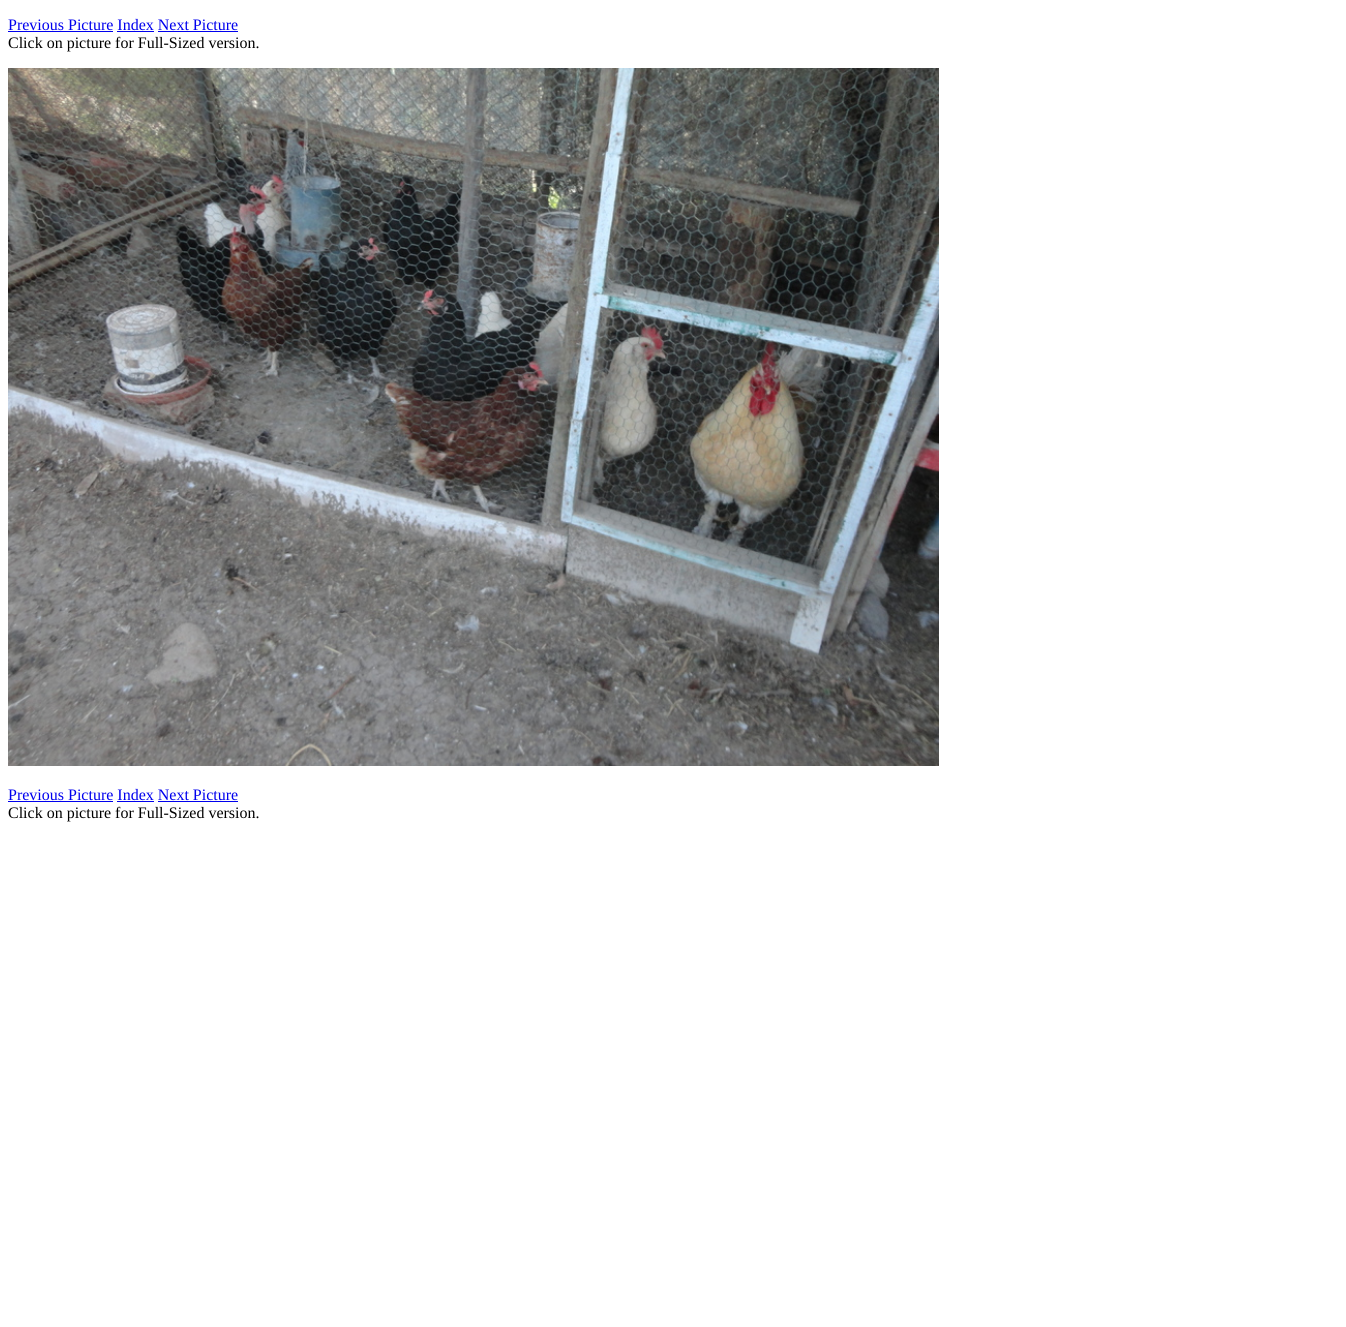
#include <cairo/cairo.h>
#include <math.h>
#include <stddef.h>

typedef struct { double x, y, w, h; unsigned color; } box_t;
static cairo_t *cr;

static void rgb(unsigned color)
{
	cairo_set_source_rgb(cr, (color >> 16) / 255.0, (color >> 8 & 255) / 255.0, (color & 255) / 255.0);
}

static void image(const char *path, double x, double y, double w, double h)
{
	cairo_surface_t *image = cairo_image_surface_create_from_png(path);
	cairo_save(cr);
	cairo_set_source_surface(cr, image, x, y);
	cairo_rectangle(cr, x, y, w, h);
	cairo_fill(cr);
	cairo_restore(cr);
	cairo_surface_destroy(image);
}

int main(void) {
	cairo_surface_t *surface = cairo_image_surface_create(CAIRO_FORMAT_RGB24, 1346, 1327);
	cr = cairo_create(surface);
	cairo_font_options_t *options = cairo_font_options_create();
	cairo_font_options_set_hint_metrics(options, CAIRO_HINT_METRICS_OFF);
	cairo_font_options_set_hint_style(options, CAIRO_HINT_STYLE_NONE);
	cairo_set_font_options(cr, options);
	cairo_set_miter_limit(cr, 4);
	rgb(0xffffff);
	cairo_paint(cr);
	{
		static const box_t items[] = {
			{8, 31, 105, 1, 0x0000ee},
			{117, 31, 37, 1, 0x0000ee},
			{158, 31, 80, 1, 0x0000ee},
		};
		for (size_t i = 0; i < sizeof items / sizeof *items; i++) {
			rgb(items[i].color);
			cairo_rectangle(cr, items[i].x, items[i].y, items[i].w, items[i].h);
			cairo_fill(cr);
		}
	}
	image("img/1.png", 8, 68, 931, 698);
	{
		static const box_t items[] = {
			{8, 801, 105, 1, 0x0000ee},
			{117, 801, 37, 1, 0x0000ee},
			{158, 801, 80, 1, 0x0000ee},
		};
		for (size_t i = 0; i < sizeof items / sizeof *items; i++) {
			rgb(items[i].color);
			cairo_rectangle(cr, items[i].x, items[i].y, items[i].w, items[i].h);
			cairo_fill(cr);
		}
	}
	cairo_select_font_face(cr, "Liberation Serif", CAIRO_FONT_SLANT_NORMAL, CAIRO_FONT_WEIGHT_NORMAL);
	cairo_set_font_size(cr, 16);
	cairo_move_to(cr, 8, 30);
	cairo_show_text(cr, "Previous Picture Index Next Picture");
	rgb(0x000000);
	cairo_move_to(cr, 8, 48);
	cairo_show_text(cr, "Click on picture for Full-Sized version.");
	rgb(0x0000ee);
	cairo_move_to(cr, 8, 800);
	cairo_show_text(cr, "Previous Picture Index Next Picture");
	rgb(0x000000);
	cairo_move_to(cr, 8, 818);
	cairo_show_text(cr, "Click on picture for Full-Sized version.");
	cairo_surface_write_to_png(surface, "page.png");
	cairo_font_options_destroy(options);
	cairo_destroy(cr);
	cairo_surface_destroy(surface);
	return 0;
}
